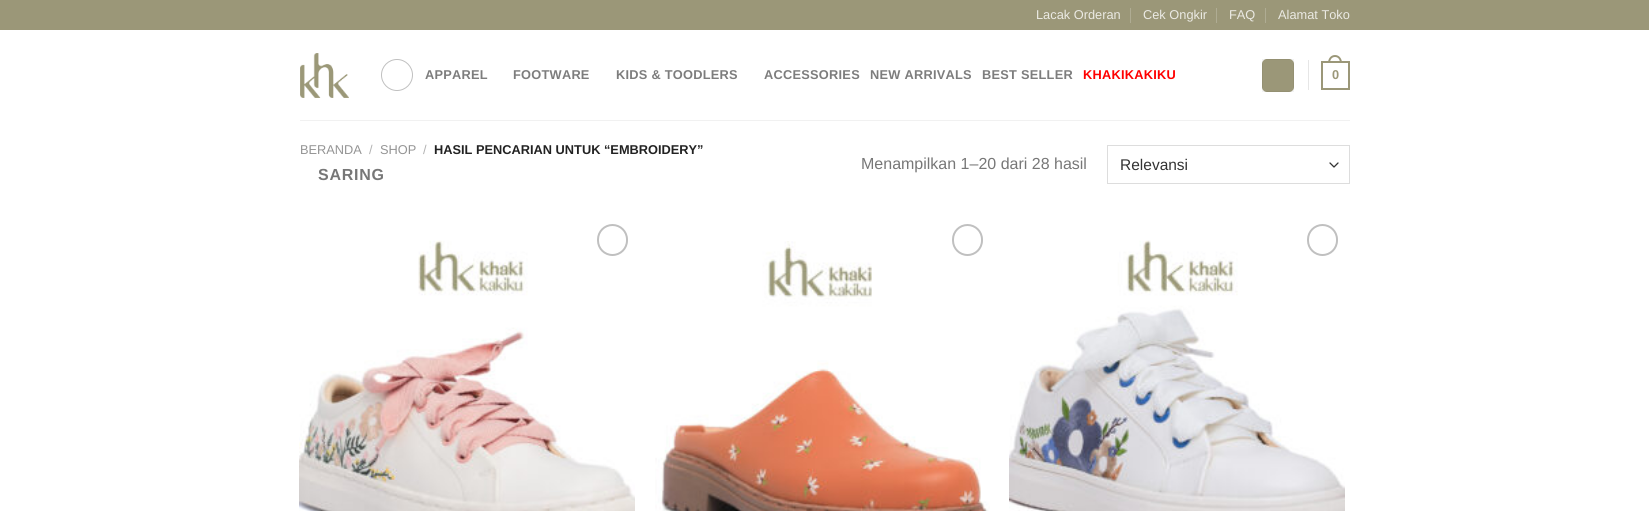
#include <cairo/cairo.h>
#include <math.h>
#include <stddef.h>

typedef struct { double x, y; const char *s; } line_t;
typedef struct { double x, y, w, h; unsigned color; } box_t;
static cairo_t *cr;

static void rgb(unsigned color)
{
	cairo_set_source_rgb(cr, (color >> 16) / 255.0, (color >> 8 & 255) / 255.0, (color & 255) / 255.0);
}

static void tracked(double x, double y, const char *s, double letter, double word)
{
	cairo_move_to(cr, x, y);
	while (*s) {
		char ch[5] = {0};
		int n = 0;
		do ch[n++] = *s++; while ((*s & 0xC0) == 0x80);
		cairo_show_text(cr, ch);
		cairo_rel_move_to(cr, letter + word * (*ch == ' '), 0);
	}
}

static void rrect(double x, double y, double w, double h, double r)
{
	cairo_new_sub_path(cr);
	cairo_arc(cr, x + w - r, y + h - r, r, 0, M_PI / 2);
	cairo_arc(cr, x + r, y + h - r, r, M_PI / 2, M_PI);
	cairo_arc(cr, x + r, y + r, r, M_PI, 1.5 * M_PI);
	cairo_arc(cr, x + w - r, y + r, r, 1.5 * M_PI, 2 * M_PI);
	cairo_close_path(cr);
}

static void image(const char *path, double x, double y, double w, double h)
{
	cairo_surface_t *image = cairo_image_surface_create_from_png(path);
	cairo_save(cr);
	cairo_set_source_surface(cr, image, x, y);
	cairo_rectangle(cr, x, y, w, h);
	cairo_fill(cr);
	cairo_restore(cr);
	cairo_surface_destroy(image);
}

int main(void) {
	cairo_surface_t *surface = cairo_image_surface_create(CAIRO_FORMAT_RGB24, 1649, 511);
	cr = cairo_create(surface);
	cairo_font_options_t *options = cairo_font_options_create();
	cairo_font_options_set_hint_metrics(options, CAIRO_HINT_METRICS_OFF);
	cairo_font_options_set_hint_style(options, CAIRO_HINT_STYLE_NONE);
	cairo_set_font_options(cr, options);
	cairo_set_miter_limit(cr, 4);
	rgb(0xffffff);
	cairo_paint(cr);
	{
		static const box_t items[] = {
			{0, 0, 1649, 30, 0x9b9778},
			{1130, 8, 1, 15, 0xafac93},
			{1216, 8, 1, 15, 0xafac93},
			{1265, 8, 1, 15, 0xafac93},
		};
		for (size_t i = 0; i < sizeof items / sizeof *items; i++) {
			rgb(items[i].color);
			cairo_rectangle(cr, items[i].x, items[i].y, items[i].w, items[i].h);
			cairo_fill(cr);
		}
	}
	image("img/1.png", 300, 53, 49, 45);
	cairo_arc(cr, 397, 75, 15.5, 0, 2 * M_PI);
	rgb(0xc0c0c0);
	cairo_set_line_width(cr, 1);
	cairo_stroke(cr);
	rgb(0x9b9778);
	rrect(1262, 59, 32, 33, 5);
	cairo_fill(cr);
	cairo_rectangle(cr, 1262.5, 59.5, 31, 32);
	cairo_set_source_rgba(cr, 0, 0, 0, 0.05);
	cairo_stroke(cr);
	rgb(0xe6e6e6);
	cairo_rectangle(cr, 1308, 60, 1, 30);
	cairo_fill(cr);
	cairo_rectangle(cr, 1322, 62, 27, 27);
	rgb(0x9b9778);
	cairo_set_line_width(cr, 2);
	cairo_stroke(cr);
	cairo_set_fill_rule(cr, CAIRO_FILL_RULE_EVEN_ODD);
	cairo_new_path(cr);
	cairo_move_to(cr, 1335, 55);
	cairo_curve_to(cr, 1339.5, 55, 1342, 59, 1342, 63);
	cairo_line_to(cr, 1328, 63);
	cairo_curve_to(cr, 1328, 59, 1330.5, 55, 1335, 55);
	cairo_close_path(cr);
	cairo_move_to(cr, 1335, 57);
	cairo_curve_to(cr, 1338.5, 57, 1340, 60, 1340, 63);
	cairo_line_to(cr, 1330, 63);
	cairo_curve_to(cr, 1330, 60, 1331.5, 57, 1335, 57);
	cairo_close_path(cr);
	cairo_fill(cr);
	rgb(0xf1f1f1);
	cairo_rectangle(cr, 300, 120, 1050, 1);
	cairo_fill(cr);
	cairo_new_path(cr);
	cairo_move_to(cr, 1330, 163);
	cairo_line_to(cr, 1334, 167);
	cairo_line_to(cr, 1338, 163);
	rgb(0x333333);
	cairo_set_line_width(cr, 1.3);
	cairo_set_line_cap(cr, CAIRO_LINE_CAP_ROUND);
	cairo_set_line_join(cr, CAIRO_LINE_JOIN_ROUND);
	cairo_stroke(cr);
	cairo_rectangle(cr, 1107.5, 145.5, 242, 38);
	rgb(0xdddddd);
	cairo_set_line_width(cr, 1);
	cairo_set_line_cap(cr, CAIRO_LINE_CAP_BUTT);
	cairo_set_line_join(cr, CAIRO_LINE_JOIN_MITER);
	cairo_stroke(cr);
	image("img/2.png", 299, 240, 336, 271);
	rrect(598, 225, 29, 30, 14.5);
	rgb(0xc0c0c0);
	cairo_set_line_width(cr, 2);
	cairo_stroke(cr);
	image("img/3.png", 655, 241, 335, 270);
	rrect(953, 225, 29, 30, 14.5);
	cairo_stroke(cr);
	image("img/4.png", 1009, 240, 336, 271);
	rrect(1308, 225, 29, 30, 14.5);
	cairo_stroke(cr);
	cairo_select_font_face(cr, "Liberation Sans", CAIRO_FONT_SLANT_NORMAL, CAIRO_FONT_WEIGHT_NORMAL);
	cairo_set_font_size(cr, 12.8);
	rgb(0xebeae4);
	{
		static const line_t items[] = {
			{1036, 19, "Lacak Orderan"},
			{1143, 19, "Cek Ongkir"},
			{1229, 19, "FAQ"},
			{1278, 19, "Alamat Toko"},
		};
		for (size_t i = 0; i < sizeof items / sizeof *items; i++) {
			cairo_move_to(cr, items[i].x, items[i].y);
			cairo_show_text(cr, items[i].s);
		}
	}
	cairo_select_font_face(cr, "Liberation Sans", CAIRO_FONT_SLANT_NORMAL, CAIRO_FONT_WEIGHT_BOLD);
	rgb(0x7d7d7d);
	{
		static const line_t items[] = {
			{425, 79, "APPAREL"},
			{513, 79, "FOOTWARE"},
			{616, 79, "KIDS & TOODLERS"},
			{764, 79, "ACCESSORIES"},
			{870, 79, "NEW ARRIVALS"},
			{982, 79, "BEST SELLER"},
		};
		for (size_t i = 0; i < sizeof items / sizeof *items; i++) {
			tracked(items[i].x, items[i].y, items[i].s, 0.25, 0);
		}
	}
	rgb(0xff0000);
	tracked(1083, 79, "KHAKIKAKIKU", 0.25, 0);
	rgb(0x9b9778);
	tracked(1332, 79, "0", 0.25, 0);
	cairo_select_font_face(cr, "Liberation Sans", CAIRO_FONT_SLANT_NORMAL, CAIRO_FONT_WEIGHT_NORMAL);
	rgb(0x949494);
	cairo_move_to(cr, 300, 154);
	cairo_show_text(cr, "BERANDA");
	rgb(0xb2b2b2);
	cairo_move_to(cr, 369, 154);
	cairo_show_text(cr, "/");
	rgb(0x949494);
	cairo_move_to(cr, 380, 154);
	cairo_show_text(cr, "SHOP");
	rgb(0xb2b2b2);
	cairo_move_to(cr, 423, 154);
	cairo_show_text(cr, "/");
	cairo_select_font_face(cr, "Liberation Sans", CAIRO_FONT_SLANT_NORMAL, CAIRO_FONT_WEIGHT_BOLD);
	rgb(0x222222);
	cairo_move_to(cr, 434, 154);
	cairo_show_text(cr, "HASIL PENCARIAN UNTUK “EMBROIDERY”");
	cairo_set_font_size(cr, 16);
	rgb(0x777777);
	tracked(318, 180, "SARING", 0.75, 0);
	cairo_select_font_face(cr, "Liberation Sans", CAIRO_FONT_SLANT_NORMAL, CAIRO_FONT_WEIGHT_NORMAL);
	cairo_move_to(cr, 861, 169);
	cairo_show_text(cr, "Menampilkan 1–20 dari 28 hasil");
	cairo_set_font_size(cr, 15.5);
	rgb(0x333333);
	cairo_move_to(cr, 1120, 170);
	cairo_show_text(cr, "Relevansi");
	cairo_surface_write_to_png(surface, "page.png");
	cairo_font_options_destroy(options);
	cairo_destroy(cr);
	cairo_surface_destroy(surface);
	return 0;
}
